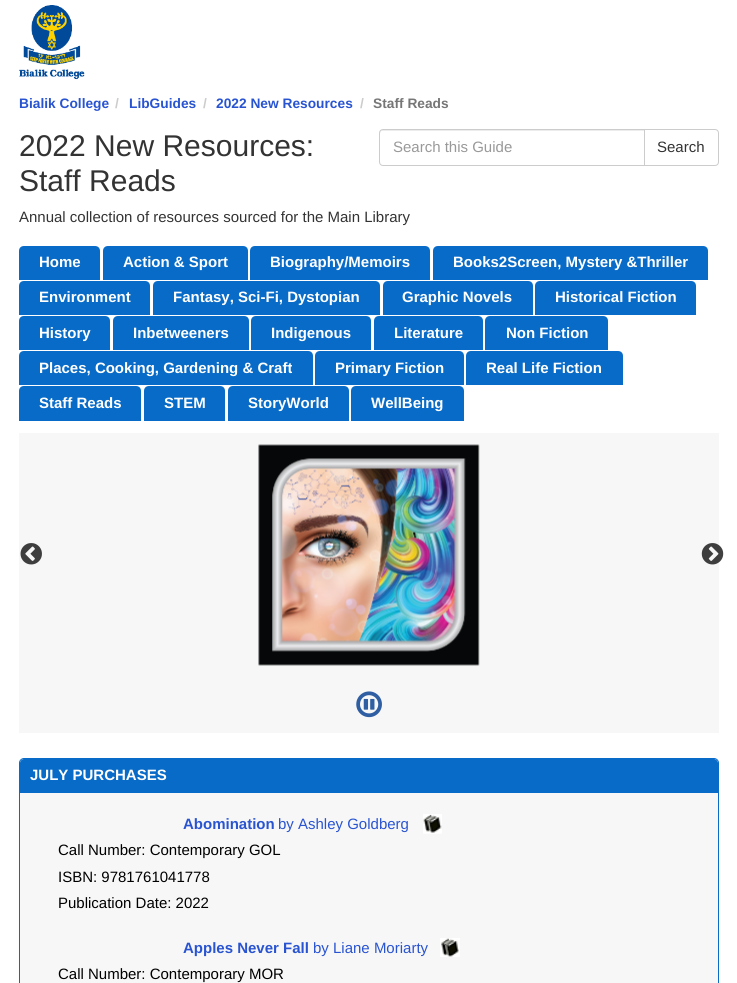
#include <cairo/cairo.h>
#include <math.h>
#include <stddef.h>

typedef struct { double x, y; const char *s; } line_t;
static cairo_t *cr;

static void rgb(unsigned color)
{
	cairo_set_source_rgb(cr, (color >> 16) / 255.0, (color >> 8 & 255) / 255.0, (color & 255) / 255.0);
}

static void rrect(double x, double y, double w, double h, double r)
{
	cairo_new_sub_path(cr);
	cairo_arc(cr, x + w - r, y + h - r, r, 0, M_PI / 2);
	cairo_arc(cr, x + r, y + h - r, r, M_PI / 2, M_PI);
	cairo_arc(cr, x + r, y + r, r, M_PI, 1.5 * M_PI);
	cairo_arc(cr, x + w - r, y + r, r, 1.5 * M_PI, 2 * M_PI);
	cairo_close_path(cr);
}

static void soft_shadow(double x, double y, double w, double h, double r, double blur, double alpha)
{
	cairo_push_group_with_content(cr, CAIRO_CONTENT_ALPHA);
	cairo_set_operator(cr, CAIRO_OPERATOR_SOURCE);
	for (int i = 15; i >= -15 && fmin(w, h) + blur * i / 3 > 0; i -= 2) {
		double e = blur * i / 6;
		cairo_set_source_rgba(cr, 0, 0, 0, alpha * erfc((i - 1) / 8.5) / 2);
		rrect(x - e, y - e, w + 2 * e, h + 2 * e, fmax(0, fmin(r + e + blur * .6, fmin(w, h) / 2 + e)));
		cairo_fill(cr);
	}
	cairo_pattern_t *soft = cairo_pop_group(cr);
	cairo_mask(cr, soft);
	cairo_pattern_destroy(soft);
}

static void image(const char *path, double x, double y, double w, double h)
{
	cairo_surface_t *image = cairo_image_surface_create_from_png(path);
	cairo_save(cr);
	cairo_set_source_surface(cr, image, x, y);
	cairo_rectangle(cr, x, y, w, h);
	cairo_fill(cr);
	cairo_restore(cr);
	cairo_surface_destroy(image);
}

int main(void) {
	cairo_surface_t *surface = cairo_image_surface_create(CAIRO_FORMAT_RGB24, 737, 983);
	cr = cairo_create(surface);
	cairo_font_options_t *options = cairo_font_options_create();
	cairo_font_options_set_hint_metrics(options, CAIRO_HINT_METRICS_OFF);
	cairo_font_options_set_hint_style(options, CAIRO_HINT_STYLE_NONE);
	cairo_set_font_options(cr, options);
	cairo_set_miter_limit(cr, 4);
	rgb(0xffffff);
	cairo_paint(cr);
	image("img/1.png", 19, 5, 66, 75);
	rgb(0xececec);
	cairo_new_path(cr);
	cairo_move_to(cr, 382, 131);
	cairo_line_to(cr, 644, 131);
	cairo_line_to(cr, 644, 130);
	cairo_line_to(cr, 382, 130);
	cairo_curve_to(cr, 381, 130, 380, 131, 380, 132);
	cairo_line_to(cr, 380, 134);
	cairo_curve_to(cr, 380, 132, 381, 131, 382, 131);
	cairo_close_path(cr);
	cairo_fill(cr);
	cairo_new_path(cr);
	cairo_move_to(cr, 383, 129.5);
	cairo_line_to(cr, 644.5, 129.5);
	cairo_line_to(cr, 644.5, 165.5);
	cairo_line_to(cr, 383, 165.5);
	cairo_curve_to(cr, 381, 165.5, 379.5, 164, 379.5, 162);
	cairo_line_to(cr, 379.5, 133);
	cairo_curve_to(cr, 379.5, 131, 381, 129.5, 383, 129.5);
	cairo_close_path(cr);
	rgb(0xcccccc);
	cairo_set_line_width(cr, 1);
	cairo_stroke(cr);
	rgb(0xffffff);
	cairo_new_path(cr);
	cairo_move_to(cr, 644.5, 129.5);
	cairo_line_to(cr, 715, 129.5);
	cairo_curve_to(cr, 717, 129.5, 718.5, 131, 718.5, 133);
	cairo_line_to(cr, 718.5, 162);
	cairo_curve_to(cr, 718.5, 164, 717, 165.5, 715, 165.5);
	cairo_line_to(cr, 644.5, 165.5);
	cairo_close_path(cr);
	cairo_fill_preserve(cr);
	rgb(0xcccccc);
	cairo_stroke(cr);
	rgb(0x086bc7);
	cairo_new_path(cr);
	cairo_move_to(cr, 24, 246);
	cairo_line_to(cr, 95, 246);
	cairo_curve_to(cr, 98, 246, 100, 248, 100, 251);
	cairo_line_to(cr, 100, 280);
	cairo_line_to(cr, 19, 280);
	cairo_line_to(cr, 19, 251);
	cairo_curve_to(cr, 19, 248, 21, 246, 24, 246);
	cairo_close_path(cr);
	cairo_fill(cr);
	cairo_new_path(cr);
	cairo_move_to(cr, 108, 246);
	cairo_line_to(cr, 243, 246);
	cairo_curve_to(cr, 246, 246, 248, 248, 248, 251);
	cairo_line_to(cr, 248, 280);
	cairo_line_to(cr, 103, 280);
	cairo_line_to(cr, 103, 251);
	cairo_curve_to(cr, 103, 248, 105, 246, 108, 246);
	cairo_close_path(cr);
	cairo_fill(cr);
	cairo_new_path(cr);
	cairo_move_to(cr, 255, 246);
	cairo_line_to(cr, 425, 246);
	cairo_curve_to(cr, 428, 246, 430, 248, 430, 251);
	cairo_line_to(cr, 430, 280);
	cairo_line_to(cr, 250, 280);
	cairo_line_to(cr, 250, 251);
	cairo_curve_to(cr, 250, 248, 252, 246, 255, 246);
	cairo_close_path(cr);
	cairo_fill(cr);
	cairo_new_path(cr);
	cairo_move_to(cr, 438, 246);
	cairo_line_to(cr, 703, 246);
	cairo_curve_to(cr, 706, 246, 708, 248, 708, 251);
	cairo_line_to(cr, 708, 280);
	cairo_line_to(cr, 433, 280);
	cairo_line_to(cr, 433, 251);
	cairo_curve_to(cr, 433, 248, 435, 246, 438, 246);
	cairo_close_path(cr);
	cairo_fill(cr);
	cairo_new_path(cr);
	cairo_move_to(cr, 24, 281);
	cairo_line_to(cr, 145, 281);
	cairo_curve_to(cr, 148, 281, 150, 283, 150, 286);
	cairo_line_to(cr, 150, 315);
	cairo_line_to(cr, 19, 315);
	cairo_line_to(cr, 19, 286);
	cairo_curve_to(cr, 19, 283, 21, 281, 24, 281);
	cairo_close_path(cr);
	cairo_fill(cr);
	cairo_new_path(cr);
	cairo_move_to(cr, 158, 281);
	cairo_line_to(cr, 375, 281);
	cairo_curve_to(cr, 378, 281, 380, 283, 380, 286);
	cairo_line_to(cr, 380, 315);
	cairo_line_to(cr, 153, 315);
	cairo_line_to(cr, 153, 286);
	cairo_curve_to(cr, 153, 283, 155, 281, 158, 281);
	cairo_close_path(cr);
	cairo_fill(cr);
	cairo_new_path(cr);
	cairo_move_to(cr, 388, 281);
	cairo_line_to(cr, 528, 281);
	cairo_curve_to(cr, 531, 281, 533, 283, 533, 286);
	cairo_line_to(cr, 533, 315);
	cairo_line_to(cr, 383, 315);
	cairo_line_to(cr, 383, 286);
	cairo_curve_to(cr, 383, 283, 385, 281, 388, 281);
	cairo_close_path(cr);
	cairo_fill(cr);
	cairo_new_path(cr);
	cairo_move_to(cr, 540, 281);
	cairo_line_to(cr, 691, 281);
	cairo_curve_to(cr, 694, 281, 696, 283, 696, 286);
	cairo_line_to(cr, 696, 315);
	cairo_line_to(cr, 535, 315);
	cairo_line_to(cr, 535, 286);
	cairo_curve_to(cr, 535, 283, 537, 281, 540, 281);
	cairo_close_path(cr);
	cairo_fill(cr);
	cairo_new_path(cr);
	cairo_move_to(cr, 24, 316);
	cairo_line_to(cr, 105, 316);
	cairo_curve_to(cr, 108, 316, 110, 318, 110, 321);
	cairo_line_to(cr, 110, 350);
	cairo_line_to(cr, 19, 350);
	cairo_line_to(cr, 19, 321);
	cairo_curve_to(cr, 19, 318, 21, 316, 24, 316);
	cairo_close_path(cr);
	cairo_fill(cr);
	cairo_new_path(cr);
	cairo_move_to(cr, 118, 316);
	cairo_line_to(cr, 244, 316);
	cairo_curve_to(cr, 247, 316, 249, 318, 249, 321);
	cairo_line_to(cr, 249, 350);
	cairo_line_to(cr, 113, 350);
	cairo_line_to(cr, 113, 321);
	cairo_curve_to(cr, 113, 318, 115, 316, 118, 316);
	cairo_close_path(cr);
	cairo_fill(cr);
	cairo_new_path(cr);
	cairo_move_to(cr, 256, 316);
	cairo_line_to(cr, 366, 316);
	cairo_curve_to(cr, 369, 316, 371, 318, 371, 321);
	cairo_line_to(cr, 371, 350);
	cairo_line_to(cr, 251, 350);
	cairo_line_to(cr, 251, 321);
	cairo_curve_to(cr, 251, 318, 253, 316, 256, 316);
	cairo_close_path(cr);
	cairo_fill(cr);
	cairo_new_path(cr);
	cairo_move_to(cr, 379, 316);
	cairo_line_to(cr, 478, 316);
	cairo_curve_to(cr, 481, 316, 483, 318, 483, 321);
	cairo_line_to(cr, 483, 350);
	cairo_line_to(cr, 374, 350);
	cairo_line_to(cr, 374, 321);
	cairo_curve_to(cr, 374, 318, 376, 316, 379, 316);
	cairo_close_path(cr);
	cairo_fill(cr);
	cairo_new_path(cr);
	cairo_move_to(cr, 490, 316);
	cairo_line_to(cr, 603, 316);
	cairo_curve_to(cr, 606, 316, 608, 318, 608, 321);
	cairo_line_to(cr, 608, 350);
	cairo_line_to(cr, 485, 350);
	cairo_line_to(cr, 485, 321);
	cairo_curve_to(cr, 485, 318, 487, 316, 490, 316);
	cairo_close_path(cr);
	cairo_fill(cr);
	cairo_new_path(cr);
	cairo_move_to(cr, 24, 351);
	cairo_line_to(cr, 308, 351);
	cairo_curve_to(cr, 311, 351, 313, 353, 313, 356);
	cairo_line_to(cr, 313, 385);
	cairo_line_to(cr, 19, 385);
	cairo_line_to(cr, 19, 356);
	cairo_curve_to(cr, 19, 353, 21, 351, 24, 351);
	cairo_close_path(cr);
	cairo_fill(cr);
	cairo_new_path(cr);
	cairo_move_to(cr, 320, 351);
	cairo_line_to(cr, 459, 351);
	cairo_curve_to(cr, 462, 351, 464, 353, 464, 356);
	cairo_line_to(cr, 464, 385);
	cairo_line_to(cr, 315, 385);
	cairo_line_to(cr, 315, 356);
	cairo_curve_to(cr, 315, 353, 317, 351, 320, 351);
	cairo_close_path(cr);
	cairo_fill(cr);
	cairo_new_path(cr);
	cairo_move_to(cr, 471, 351);
	cairo_line_to(cr, 618, 351);
	cairo_curve_to(cr, 621, 351, 623, 353, 623, 356);
	cairo_line_to(cr, 623, 385);
	cairo_line_to(cr, 466, 385);
	cairo_line_to(cr, 466, 356);
	cairo_curve_to(cr, 466, 353, 468, 351, 471, 351);
	cairo_close_path(cr);
	cairo_fill(cr);
	cairo_new_path(cr);
	cairo_move_to(cr, 24, 386);
	cairo_line_to(cr, 136, 386);
	cairo_curve_to(cr, 139, 386, 141, 388, 141, 391);
	cairo_line_to(cr, 141, 421);
	cairo_line_to(cr, 19, 421);
	cairo_line_to(cr, 19, 391);
	cairo_curve_to(cr, 19, 388, 21, 386, 24, 386);
	cairo_close_path(cr);
	cairo_fill(cr);
	cairo_new_path(cr);
	cairo_move_to(cr, 149, 386);
	cairo_line_to(cr, 220, 386);
	cairo_curve_to(cr, 223, 386, 225, 388, 225, 391);
	cairo_line_to(cr, 225, 421);
	cairo_line_to(cr, 144, 421);
	cairo_line_to(cr, 144, 391);
	cairo_curve_to(cr, 144, 388, 146, 386, 149, 386);
	cairo_close_path(cr);
	cairo_fill(cr);
	cairo_new_path(cr);
	cairo_move_to(cr, 233, 386);
	cairo_line_to(cr, 344, 386);
	cairo_curve_to(cr, 347, 386, 349, 388, 349, 391);
	cairo_line_to(cr, 349, 421);
	cairo_line_to(cr, 228, 421);
	cairo_line_to(cr, 228, 391);
	cairo_curve_to(cr, 228, 388, 230, 386, 233, 386);
	cairo_close_path(cr);
	cairo_fill(cr);
	cairo_new_path(cr);
	cairo_move_to(cr, 356, 386);
	cairo_line_to(cr, 459, 386);
	cairo_curve_to(cr, 462, 386, 464, 388, 464, 391);
	cairo_line_to(cr, 464, 421);
	cairo_line_to(cr, 351, 421);
	cairo_line_to(cr, 351, 391);
	cairo_curve_to(cr, 351, 388, 353, 386, 356, 386);
	cairo_close_path(cr);
	cairo_fill(cr);
	rgb(0xf7f7f7);
	cairo_rectangle(cr, 19, 433, 700, 300);
	cairo_fill(cr);
	image("img/2.png", 20, 543, 22, 22);
	image("img/3.png", 258, 444, 222, 222);
	image("img/4.png", 701, 543, 23, 22);
	image("img/5.png", 356, 691, 26, 27);
	rgb(0xaaaaaa);
	soft_shadow(26, 775, 685, 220, 0, 4, 1);
	rgb(0xf7f7f7);
	rrect(19.5, 758.5, 699, 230, 4.5);
	cairo_fill_preserve(cr);
	rgb(0x086bc7);
	cairo_stroke(cr);
	cairo_new_path(cr);
	cairo_move_to(cr, 24, 759);
	cairo_line_to(cr, 714, 759);
	cairo_curve_to(cr, 716, 759, 718, 761, 718, 763);
	cairo_line_to(cr, 718, 793);
	cairo_line_to(cr, 20, 793);
	cairo_line_to(cr, 20, 763);
	cairo_curve_to(cr, 20, 761, 22, 759, 24, 759);
	cairo_close_path(cr);
	cairo_fill(cr);
	image("img/6.png", 423, 814, 19, 20);
	image("img/7.png", 440, 938, 20, 19);
	cairo_select_font_face(cr, "Liberation Sans", CAIRO_FONT_SLANT_NORMAL, CAIRO_FONT_WEIGHT_BOLD);
	cairo_set_font_size(cr, 13.75);
	rgb(0x2954d1);
	cairo_move_to(cr, 19, 108);
	cairo_show_text(cr, "Bialik College");
	rgb(0xcccccc);
	cairo_move_to(cr, 115, 108);
	cairo_show_text(cr, "/");
	rgb(0x2954d1);
	cairo_move_to(cr, 129, 108);
	cairo_show_text(cr, "LibGuides");
	rgb(0xcccccc);
	cairo_move_to(cr, 203, 108);
	cairo_show_text(cr, "/");
	rgb(0x2954d1);
	cairo_move_to(cr, 216, 108);
	cairo_show_text(cr, "2022 New Resources");
	rgb(0xcccccc);
	cairo_move_to(cr, 360, 108);
	cairo_show_text(cr, "/");
	rgb(0x767676);
	cairo_move_to(cr, 373, 108);
	cairo_show_text(cr, "Staff Reads");
	cairo_select_font_face(cr, "Liberation Sans", CAIRO_FONT_SLANT_NORMAL, CAIRO_FONT_WEIGHT_NORMAL);
	cairo_set_font_size(cr, 30);
	rgb(0x333333);
	cairo_move_to(cr, 19, 156);
	cairo_show_text(cr, "2022 New Resources:");
	cairo_move_to(cr, 19, 191);
	cairo_show_text(cr, "Staff Reads");
	cairo_set_font_size(cr, 15);
	cairo_move_to(cr, 19, 222);
	cairo_show_text(cr, "Annual collection of resources sourced for the Main Library");
	rgb(0x999999);
	cairo_move_to(cr, 393, 152);
	cairo_show_text(cr, "Search this Guide");
	rgb(0x333333);
	cairo_move_to(cr, 657, 152);
	cairo_show_text(cr, "Search");
	cairo_select_font_face(cr, "Liberation Sans", CAIRO_FONT_SLANT_NORMAL, CAIRO_FONT_WEIGHT_BOLD);
	rgb(0xffffff);
	{
		static const line_t items[] = {
			{39, 267, "Home"},
			{123, 267, "Action & Sport"},
			{270, 267, "Biography/Memoirs"},
			{453, 267, "Books2Screen, Mystery &Thriller"},
			{39, 302, "Environment"},
			{173, 302, "Fantasy, Sci-Fi, Dystopian"},
			{402, 302, "Graphic Novels"},
			{555, 302, "Historical Fiction"},
			{39, 338, "History"},
			{133, 338, "Inbetweeners"},
			{271, 338, "Indigenous"},
			{394, 338, "Literature"},
			{506, 338, "Non Fiction"},
			{39, 373, "Places, Cooking, Gardening & Craft"},
			{335, 373, "Primary Fiction"},
			{486, 373, "Real Life Fiction"},
			{39, 408, "Staff Reads"},
			{164, 408, "STEM"},
			{248, 408, "StoryWorld"},
			{371, 408, "WellBeing"},
			{30, 780, "JULY PURCHASES"},
		};
		for (size_t i = 0; i < sizeof items / sizeof *items; i++) {
			cairo_move_to(cr, items[i].x, items[i].y);
			cairo_show_text(cr, items[i].s);
		}
	}
	rgb(0x2954d1);
	cairo_move_to(cr, 183, 829);
	cairo_show_text(cr, "Abomination");
	cairo_select_font_face(cr, "Liberation Sans", CAIRO_FONT_SLANT_NORMAL, CAIRO_FONT_WEIGHT_NORMAL);
	cairo_move_to(cr, 278, 829);
	cairo_show_text(cr, "by Ashley Goldberg");
	rgb(0x000000);
	{
		static const line_t items[] = {
			{58, 855, "Call Number: Contemporary GOL"},
			{58, 882, "ISBN: 9781761041778"},
			{58, 908, "Publication Date: 2022"},
		};
		for (size_t i = 0; i < sizeof items / sizeof *items; i++) {
			cairo_move_to(cr, items[i].x, items[i].y);
			cairo_show_text(cr, items[i].s);
		}
	}
	cairo_select_font_face(cr, "Liberation Sans", CAIRO_FONT_SLANT_NORMAL, CAIRO_FONT_WEIGHT_BOLD);
	rgb(0x2954d1);
	cairo_move_to(cr, 183, 953);
	cairo_show_text(cr, "Apples Never Fall");
	cairo_select_font_face(cr, "Liberation Sans", CAIRO_FONT_SLANT_NORMAL, CAIRO_FONT_WEIGHT_NORMAL);
	cairo_move_to(cr, 313, 953);
	cairo_show_text(cr, "by Liane Moriarty");
	rgb(0x000000);
	cairo_move_to(cr, 58, 979);
	cairo_show_text(cr, "Call Number: Contemporary MOR");
	cairo_surface_write_to_png(surface, "page.png");
	cairo_font_options_destroy(options);
	cairo_destroy(cr);
	cairo_surface_destroy(surface);
	return 0;
}
